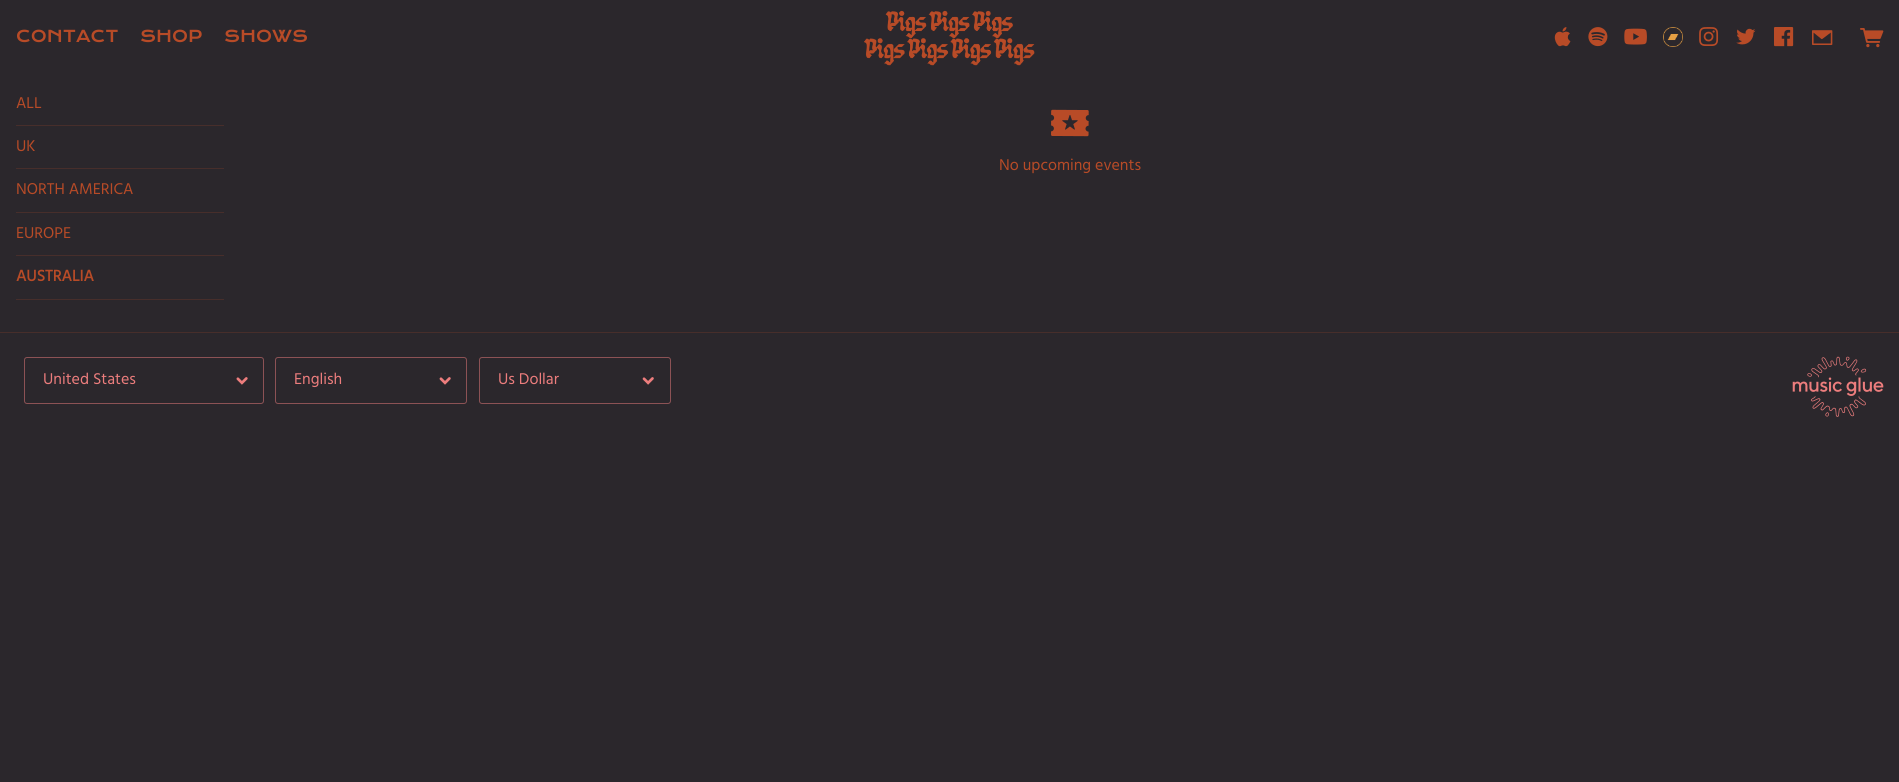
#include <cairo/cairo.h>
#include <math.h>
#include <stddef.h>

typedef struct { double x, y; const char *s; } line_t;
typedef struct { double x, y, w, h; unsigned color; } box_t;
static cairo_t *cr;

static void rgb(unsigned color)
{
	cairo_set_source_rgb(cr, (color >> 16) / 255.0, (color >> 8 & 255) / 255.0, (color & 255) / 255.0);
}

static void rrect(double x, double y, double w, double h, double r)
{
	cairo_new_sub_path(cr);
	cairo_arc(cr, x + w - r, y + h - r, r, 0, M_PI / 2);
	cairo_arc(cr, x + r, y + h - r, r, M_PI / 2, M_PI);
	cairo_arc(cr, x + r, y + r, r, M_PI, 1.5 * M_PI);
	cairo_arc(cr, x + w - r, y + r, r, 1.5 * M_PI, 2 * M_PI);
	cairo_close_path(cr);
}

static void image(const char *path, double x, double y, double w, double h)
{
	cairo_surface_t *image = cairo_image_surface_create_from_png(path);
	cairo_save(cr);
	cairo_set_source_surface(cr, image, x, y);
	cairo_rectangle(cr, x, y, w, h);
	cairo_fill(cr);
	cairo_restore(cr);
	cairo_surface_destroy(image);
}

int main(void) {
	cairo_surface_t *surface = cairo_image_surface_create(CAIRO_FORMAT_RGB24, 1899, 782);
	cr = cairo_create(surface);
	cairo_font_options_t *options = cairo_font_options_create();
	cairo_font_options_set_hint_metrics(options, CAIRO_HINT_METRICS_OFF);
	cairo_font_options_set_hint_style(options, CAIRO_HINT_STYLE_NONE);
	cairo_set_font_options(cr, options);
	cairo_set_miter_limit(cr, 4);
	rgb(0x2b272c);
	cairo_paint(cr);
	image("img/1.png", 864, 10, 171, 56);
	image("img/2.png", 1554, 27, 17, 20);
	image("img/3.png", 1588, 27, 20, 20);
	image("img/4.png", 1624, 28, 23, 17);
	image("img/5.png", 1663, 27, 20, 20);
	image("img/6.png", 1699, 27, 20, 19);
	image("img/7.png", 1736, 28, 20, 17);
	image("img/8.png", 1774, 27, 20, 20);
	image("img/9.png", 1812, 30, 21, 15);
	image("img/10.png", 1860, 28, 24, 20);
	{
		static const box_t items[] = {
			{16, 125, 208, 1, 0x472e2b},
			{16, 168, 208, 1, 0x472e2b},
			{16, 212, 208, 1, 0x472e2b},
			{16, 255, 208, 1, 0x472e2b},
			{16, 299, 208, 1, 0x472e2b},
		};
		for (size_t i = 0; i < sizeof items / sizeof *items; i++) {
			rgb(items[i].color);
			cairo_rectangle(cr, items[i].x, items[i].y, items[i].w, items[i].h);
			cairo_fill(cr);
		}
	}
	image("img/11.png", 1051, 109, 38, 28);
	cairo_rectangle(cr, 0, 332, 1899, 1);
	cairo_fill(cr);
	rrect(24.5, 357.5, 239, 46, 2.5);
	rgb(0x8c5255);
	cairo_set_line_width(cr, 1);
	cairo_stroke(cr);
	image("img/12.png", 236, 377, 12, 8);
	rrect(275.5, 357.5, 191, 46, 2.5);
	cairo_stroke(cr);
	image("img/13.png", 439, 377, 12, 8);
	rrect(479.5, 357.5, 191, 46, 2.5);
	cairo_stroke(cr);
	image("img/14.png", 642, 377, 12, 8);
	image("img/15.png", 1792, 356, 92, 61);
	cairo_select_font_face(cr, "Krona One", CAIRO_FONT_SLANT_NORMAL, CAIRO_FONT_WEIGHT_NORMAL);
	cairo_set_font_size(cr, 16);
	rgb(0xb84b27);
	{
		static const line_t items[] = {
			{16, 42, "CONTACT"},
			{140, 42, "SHOP"},
			{224, 42, "SHOWS"},
		};
		for (size_t i = 0; i < sizeof items / sizeof *items; i++) {
			cairo_move_to(cr, items[i].x, items[i].y);
			cairo_show_text(cr, items[i].s);
		}
	}
	cairo_select_font_face(cr, "Hind", CAIRO_FONT_SLANT_NORMAL, CAIRO_FONT_WEIGHT_NORMAL);
	{
		static const line_t items[] = {
			{16, 108, "ALL"},
			{16, 151, "UK"},
			{16, 194, "NORTH AMERICA"},
			{16, 238, "EUROPE"},
		};
		for (size_t i = 0; i < sizeof items / sizeof *items; i++) {
			cairo_move_to(cr, items[i].x, items[i].y);
			cairo_show_text(cr, items[i].s);
		}
	}
	cairo_select_font_face(cr, "Hind", CAIRO_FONT_SLANT_NORMAL, CAIRO_FONT_WEIGHT_BOLD);
	cairo_move_to(cr, 16, 281);
	cairo_show_text(cr, "AUSTRALIA");
	cairo_select_font_face(cr, "Hind", CAIRO_FONT_SLANT_NORMAL, CAIRO_FONT_WEIGHT_NORMAL);
	cairo_move_to(cr, 999, 170);
	cairo_show_text(cr, "No upcoming events");
	rgb(0xed7d7d);
	{
		static const line_t items[] = {
			{43, 384, "United States"},
			{294, 384, "English"},
			{498, 384, "Us Dollar"},
		};
		for (size_t i = 0; i < sizeof items / sizeof *items; i++) {
			cairo_move_to(cr, items[i].x, items[i].y);
			cairo_show_text(cr, items[i].s);
		}
	}
	cairo_surface_write_to_png(surface, "page.png");
	cairo_font_options_destroy(options);
	cairo_destroy(cr);
	cairo_surface_destroy(surface);
	return 0;
}
